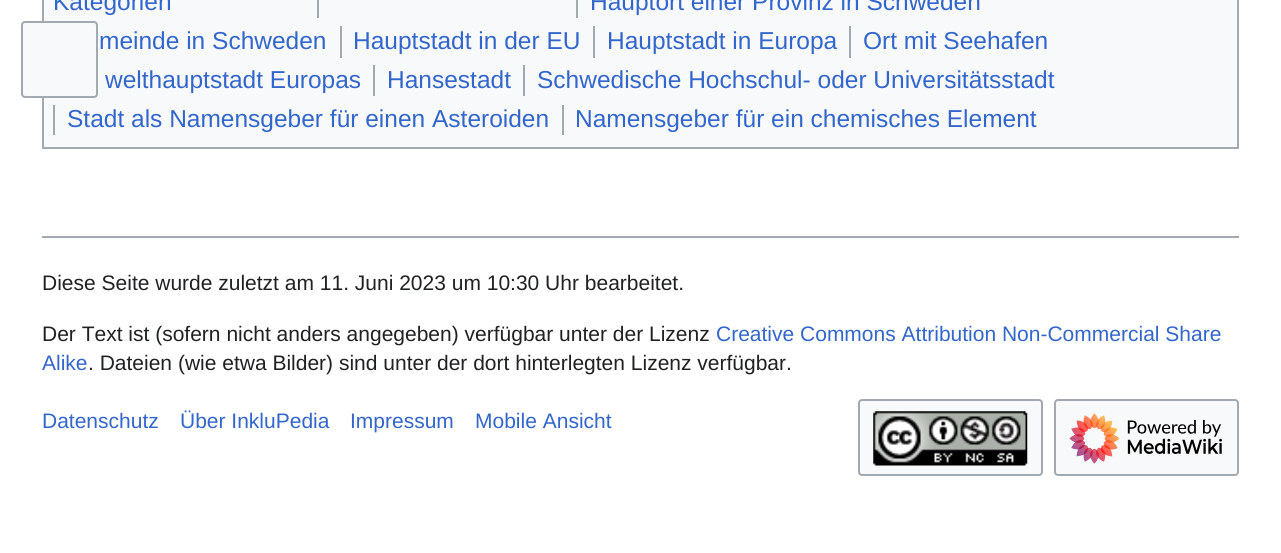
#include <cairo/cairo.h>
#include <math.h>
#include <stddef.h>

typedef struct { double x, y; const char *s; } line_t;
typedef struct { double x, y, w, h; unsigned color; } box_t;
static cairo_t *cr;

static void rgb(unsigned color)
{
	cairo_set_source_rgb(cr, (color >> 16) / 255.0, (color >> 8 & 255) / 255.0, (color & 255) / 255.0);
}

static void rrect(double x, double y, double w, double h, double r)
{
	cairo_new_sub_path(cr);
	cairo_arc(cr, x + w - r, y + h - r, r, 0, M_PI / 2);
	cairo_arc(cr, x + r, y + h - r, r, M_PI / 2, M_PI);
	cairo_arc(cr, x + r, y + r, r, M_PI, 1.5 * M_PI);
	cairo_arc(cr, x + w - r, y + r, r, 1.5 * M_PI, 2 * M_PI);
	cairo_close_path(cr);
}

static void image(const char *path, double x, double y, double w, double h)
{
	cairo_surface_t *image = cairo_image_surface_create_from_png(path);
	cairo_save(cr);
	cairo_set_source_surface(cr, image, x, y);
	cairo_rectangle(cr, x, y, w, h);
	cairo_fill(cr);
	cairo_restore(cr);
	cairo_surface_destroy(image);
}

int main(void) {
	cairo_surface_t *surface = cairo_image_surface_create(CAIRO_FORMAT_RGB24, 1281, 553);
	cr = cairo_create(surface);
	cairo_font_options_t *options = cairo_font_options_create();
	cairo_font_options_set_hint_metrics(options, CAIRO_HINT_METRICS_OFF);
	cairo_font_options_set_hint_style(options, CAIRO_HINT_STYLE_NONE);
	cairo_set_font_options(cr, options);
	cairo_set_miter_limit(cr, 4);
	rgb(0xffffff);
	cairo_paint(cr);
	rgb(0xf8f9fa);
	cairo_rectangle(cr, 43, -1, 1195, 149);
	cairo_fill_preserve(cr);
	rgb(0xa2a9b1);
	cairo_stroke(cr);
	{
		static const box_t items[] = {
			{317, 0, 2, 18, 0xa2a9b1},
			{576, 0, 2, 18, 0xa2a9b1},
			{340, 26, 2, 32, 0xa2a9b1},
			{593, 26, 2, 32, 0xa2a9b1},
			{849, 26, 2, 32, 0xa2a9b1},
			{373, 65, 2, 31, 0xa2a9b1},
			{523, 65, 2, 31, 0xa2a9b1},
			{53, 105, 2, 30, 0xa2a9b1},
			{562, 105, 2, 30, 0xa2a9b1},
		};
		for (size_t i = 0; i < sizeof items / sizeof *items; i++) {
			rgb(items[i].color);
			cairo_rectangle(cr, items[i].x, items[i].y, items[i].w, items[i].h);
			cairo_fill(cr);
		}
	}
	rgb(0xf8f9fa);
	rrect(22, 22, 75, 75, 3);
	cairo_fill_preserve(cr);
	rgb(0xa2a9b1);
	cairo_stroke(cr);
	cairo_rectangle(cr, 42, 236, 1197, 2);
	cairo_fill(cr);
	rgb(0xf8f9fa);
	rrect(859, 400, 183, 75, 3);
	cairo_fill_preserve(cr);
	rgb(0xa2a9b1);
	cairo_stroke(cr);
	image("img/1.png", 873, 411, 155, 55);
	rgb(0xf8f9fa);
	rrect(1055, 400, 183, 75, 3);
	cairo_fill_preserve(cr);
	rgb(0xa2a9b1);
	cairo_stroke(cr);
	image("img/2.png", 1069, 413, 153, 51);
	cairo_select_font_face(cr, "Liberation Sans", CAIRO_FONT_SLANT_NORMAL, CAIRO_FONT_WEIGHT_NORMAL);
	cairo_set_font_size(cr, 24.5);
	rgb(0x3366cc);
	{
		static const line_t items[] = {
			{53, 10, "Kategorien"},
			{590, 10, "Hauptort einer Provinz in Schweden"},
			{99, 49, "meinde in Schweden"},
			{353, 49, "Hauptstadt in der EU"},
			{607, 49, "Hauptstadt in Europa"},
			{863, 49, "Ort mit Seehafen"},
			{105, 88, "welthauptstadt Europas"},
			{387, 88, "Hansestadt"},
			{537, 88, "Schwedische Hochschul- oder Universitätsstadt"},
			{67, 127, "Stadt als Namensgeber für einen Asteroiden"},
			{575, 127, "Namensgeber für ein chemisches Element"},
		};
		for (size_t i = 0; i < sizeof items / sizeof *items; i++) {
			cairo_move_to(cr, items[i].x, items[i].y);
			cairo_show_text(cr, items[i].s);
		}
	}
	cairo_set_font_size(cr, 21);
	rgb(0x202122);
	cairo_move_to(cr, 42, 290);
	cairo_show_text(cr, "Diese Seite wurde zuletzt am 11. Juni 2023 um 10:30 Uhr bearbeitet.");
	cairo_move_to(cr, 42, 341);
	cairo_show_text(cr, "Der Text ist (sofern nicht anders angegeben) verfügbar unter der Lizenz");
	rgb(0x3366cc);
	cairo_move_to(cr, 716, 341);
	cairo_show_text(cr, "Creative Commons Attribution Non-Commercial Share");
	cairo_move_to(cr, 42, 370);
	cairo_show_text(cr, "Alike");
	rgb(0x202122);
	cairo_move_to(cr, 88, 370);
	cairo_show_text(cr, ". Dateien (wie etwa Bilder) sind unter der dort hinterlegten Lizenz verfügbar.");
	rgb(0x3366cc);
	{
		static const line_t items[] = {
			{42, 428, "Datenschutz"},
			{180, 428, "Über InkluPedia"},
			{350, 428, "Impressum"},
			{475, 428, "Mobile Ansicht"},
		};
		for (size_t i = 0; i < sizeof items / sizeof *items; i++) {
			cairo_move_to(cr, items[i].x, items[i].y);
			cairo_show_text(cr, items[i].s);
		}
	}
	cairo_surface_write_to_png(surface, "page.png");
	cairo_font_options_destroy(options);
	cairo_destroy(cr);
	cairo_surface_destroy(surface);
	return 0;
}
